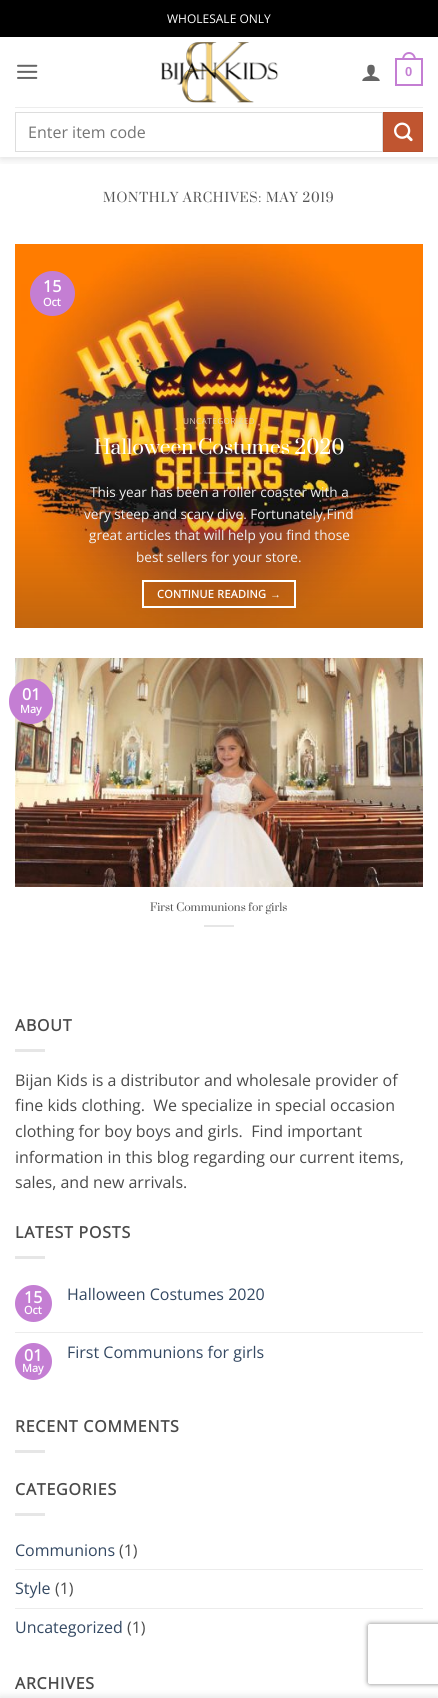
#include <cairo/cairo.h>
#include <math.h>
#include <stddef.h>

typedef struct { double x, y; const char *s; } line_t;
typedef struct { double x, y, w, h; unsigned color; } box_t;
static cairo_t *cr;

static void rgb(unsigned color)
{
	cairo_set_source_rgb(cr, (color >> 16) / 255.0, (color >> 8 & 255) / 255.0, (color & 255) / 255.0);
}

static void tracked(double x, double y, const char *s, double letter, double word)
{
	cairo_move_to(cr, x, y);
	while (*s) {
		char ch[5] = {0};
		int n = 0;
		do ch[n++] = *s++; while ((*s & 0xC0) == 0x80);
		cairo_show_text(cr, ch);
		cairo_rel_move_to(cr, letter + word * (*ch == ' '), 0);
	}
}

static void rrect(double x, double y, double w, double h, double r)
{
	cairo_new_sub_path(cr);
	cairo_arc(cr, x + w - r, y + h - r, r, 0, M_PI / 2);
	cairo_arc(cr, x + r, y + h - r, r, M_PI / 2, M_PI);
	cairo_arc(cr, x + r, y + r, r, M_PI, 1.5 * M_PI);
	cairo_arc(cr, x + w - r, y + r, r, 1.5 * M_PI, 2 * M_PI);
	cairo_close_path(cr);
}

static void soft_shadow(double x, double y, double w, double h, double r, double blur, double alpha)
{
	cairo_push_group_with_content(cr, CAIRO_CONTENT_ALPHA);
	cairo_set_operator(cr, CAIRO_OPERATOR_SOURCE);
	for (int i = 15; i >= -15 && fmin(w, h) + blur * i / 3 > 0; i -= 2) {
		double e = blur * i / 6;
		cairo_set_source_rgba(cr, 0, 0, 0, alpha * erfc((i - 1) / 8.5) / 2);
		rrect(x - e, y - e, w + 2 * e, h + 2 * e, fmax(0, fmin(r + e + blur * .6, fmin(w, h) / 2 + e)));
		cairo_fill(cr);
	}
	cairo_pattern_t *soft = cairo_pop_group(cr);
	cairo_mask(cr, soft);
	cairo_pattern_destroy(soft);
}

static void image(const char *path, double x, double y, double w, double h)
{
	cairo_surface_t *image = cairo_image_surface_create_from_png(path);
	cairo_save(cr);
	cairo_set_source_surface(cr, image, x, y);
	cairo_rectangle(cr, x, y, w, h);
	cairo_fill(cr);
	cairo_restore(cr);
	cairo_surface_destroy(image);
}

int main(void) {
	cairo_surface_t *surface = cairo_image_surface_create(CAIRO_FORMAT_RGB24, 438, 1698);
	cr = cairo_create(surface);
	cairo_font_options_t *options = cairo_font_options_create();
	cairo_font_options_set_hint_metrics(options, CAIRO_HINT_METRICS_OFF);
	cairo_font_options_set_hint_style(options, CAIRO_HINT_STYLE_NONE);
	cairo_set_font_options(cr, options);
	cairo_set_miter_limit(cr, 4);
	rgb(0xffffff);
	cairo_paint(cr);
	cairo_save(cr);
	cairo_rectangle(cr, 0, 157, 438, 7);
	cairo_clip(cr);
	rgb(0x000000);
	soft_shadow(1, 1, 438, 157, 0, 5, 0.15);
	cairo_restore(cr);
	rgb(0x000000);
	cairo_rectangle(cr, 0, 0, 438, 37);
	cairo_fill(cr);
	image("img/1.png", 17, 64, 21, 15);
	image("img/2.png", 161, 42, 118, 61);
	image("img/3.png", 362, 64, 18, 17);
	cairo_rectangle(cr, 396, 59, 26, 26);
	rgb(0xc47ed3);
	cairo_stroke(cr);
	cairo_set_fill_rule(cr, CAIRO_FILL_RULE_EVEN_ODD);
	cairo_new_path(cr);
	cairo_move_to(cr, 409, 52);
	cairo_curve_to(cr, 413.5, 52, 416, 56, 416, 60);
	cairo_line_to(cr, 402, 60);
	cairo_curve_to(cr, 402, 56, 404.5, 52, 409, 52);
	cairo_close_path(cr);
	cairo_move_to(cr, 409, 54);
	cairo_curve_to(cr, 412.5, 54, 414, 57, 414, 60);
	cairo_line_to(cr, 404, 60);
	cairo_curve_to(cr, 404, 57, 405.5, 54, 409, 54);
	cairo_close_path(cr);
	cairo_fill(cr);
	rgb(0xededed);
	cairo_rectangle(cr, 15, 107, 408, 1);
	cairo_fill(cr);
	cairo_rectangle(cr, 15.5, 112.5, 367, 39);
	rgb(0xdddddd);
	cairo_set_line_width(cr, 1);
	cairo_stroke(cr);
	rgb(0xc05530);
	cairo_rectangle(cr, 383.5, 112.5, 39, 39);
	cairo_fill_preserve(cr);
	rgb(0xb6512e);
	cairo_stroke(cr);
	image("img/4.png", 394, 122, 19, 20);
	image("img/5.png", 15, 244, 408, 384);
	rgb(0xc47ed3);
	cairo_arc(cr, 52.5, 293.5, 22.5, 0, 2 * M_PI);
	cairo_fill(cr);
	cairo_set_source_rgba(cr, 1, 1, 1, 0.3);
	cairo_rectangle(cr, 204, 472, 30, 2);
	cairo_fill(cr);
	cairo_rectangle(cr, 143, 581, 152, 26);
	rgb(0xffffff);
	cairo_set_line_width(cr, 2);
	cairo_stroke(cr);
	image("img/6.png", 15, 658, 408, 229);
	rgb(0xc47ed3);
	rrect(9, 679, 44, 45, 22);
	cairo_fill(cr);
	{
		static const box_t items[] = {
			{204, 925, 30, 2, 0xe6e6e6},
			{15, 1049, 30, 3, 0xe6e6e6},
			{15, 1256, 30, 3, 0xe6e6e6},
		};
		for (size_t i = 0; i < sizeof items / sizeof *items; i++) {
			rgb(items[i].color);
			cairo_rectangle(cr, items[i].x, items[i].y, items[i].w, items[i].h);
			cairo_fill(cr);
		}
	}
	rgb(0xc47ed3);
	cairo_arc(cr, 33.5, 1303.5, 18.5, 0, 2 * M_PI);
	cairo_fill(cr);
	rgb(0xececec);
	cairo_rectangle(cr, 15, 1332, 408, 1);
	cairo_fill(cr);
	rgb(0xc47ed3);
	cairo_arc(cr, 33.5, 1361.5, 18.5, 0, 2 * M_PI);
	cairo_fill(cr);
	{
		static const box_t items[] = {
			{15, 1450, 30, 3, 0xe6e6e6},
			{15, 1513, 30, 3, 0xe6e6e6},
			{15, 1569, 408, 1, 0xececec},
			{15, 1608, 408, 1, 0xececec},
		};
		for (size_t i = 0; i < sizeof items / sizeof *items; i++) {
			rgb(items[i].color);
			cairo_rectangle(cr, items[i].x, items[i].y, items[i].w, items[i].h);
			cairo_fill(cr);
		}
	}
	cairo_save(cr);
	cairo_new_path(cr);
	cairo_move_to(cr, 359, 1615);
	cairo_line_to(cr, 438, 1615);
	cairo_line_to(cr, 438, 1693);
	cairo_line_to(cr, 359, 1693);
	cairo_close_path(cr);
	cairo_move_to(cr, 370, 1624);
	cairo_line_to(cr, 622, 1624);
	cairo_curve_to(cr, 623, 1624, 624, 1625, 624, 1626);
	cairo_line_to(cr, 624, 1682);
	cairo_curve_to(cr, 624, 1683, 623, 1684, 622, 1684);
	cairo_line_to(cr, 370, 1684);
	cairo_curve_to(cr, 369, 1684, 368, 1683, 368, 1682);
	cairo_line_to(cr, 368, 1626);
	cairo_curve_to(cr, 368, 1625, 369, 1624, 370, 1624);
	cairo_close_path(cr);
	cairo_clip(cr);
	rgb(0x808080);
	soft_shadow(368, 1624, 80, 60, 2, 2.5, 1);
	cairo_restore(cr);
	rgb(0x000000);
	soft_shadow(0, 1698, 438, 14, 0, 4.5, 0.14);
	cairo_select_font_face(cr, "Open Sans", CAIRO_FONT_SLANT_NORMAL, CAIRO_FONT_WEIGHT_NORMAL);
	cairo_set_font_size(cr, 12);
	rgb(0xffffff);
	cairo_move_to(cr, 167, 23);
	cairo_show_text(cr, "WHOLESALE ONLY");
	cairo_select_font_face(cr, "Liberation Sans", CAIRO_FONT_SLANT_NORMAL, CAIRO_FONT_WEIGHT_BOLD);
	cairo_set_font_size(cr, 13);
	rgb(0xc47ed3);
	cairo_move_to(cr, 405, 76);
	cairo_show_text(cr, "0");
	cairo_select_font_face(cr, "Open Sans", CAIRO_FONT_SLANT_NORMAL, CAIRO_FONT_WEIGHT_NORMAL);
	cairo_set_font_size(cr, 16);
	rgb(0x757575);
	cairo_move_to(cr, 28, 138);
	cairo_show_text(cr, "Enter item code");
	cairo_select_font_face(cr, "Suranna", CAIRO_FONT_SLANT_NORMAL, CAIRO_FONT_WEIGHT_NORMAL);
	rgb(0x555555);
	tracked(103, 202, "MONTHLY ARCHIVES: MAY 2019", 0.8, 0);
	cairo_select_font_face(cr, "Open Sans", CAIRO_FONT_SLANT_NORMAL, CAIRO_FONT_WEIGHT_BOLD);
	rgb(0xffffff);
	cairo_move_to(cr, 43, 292);
	cairo_show_text(cr, "15");
	cairo_set_font_size(cr, 11);
	cairo_move_to(cr, 43, 306);
	cairo_show_text(cr, "Oct");
	cairo_select_font_face(cr, "Open Sans", CAIRO_FONT_SLANT_NORMAL, CAIRO_FONT_WEIGHT_NORMAL);
	cairo_set_font_size(cr, 8.25);
	rgb(0xe3d2b7);
	tracked(183, 424, "UNCATEGORIZED", 0.4, 0);
	cairo_select_font_face(cr, "Suranna", CAIRO_FONT_SLANT_NORMAL, CAIRO_FONT_WEIGHT_NORMAL);
	cairo_set_font_size(cr, 24.5);
	rgb(0xffffff);
	cairo_move_to(cr, 94, 454);
	cairo_show_text(cr, "Halloween Costumes 2020");
	cairo_select_font_face(cr, "Open Sans", CAIRO_FONT_SLANT_NORMAL, CAIRO_FONT_WEIGHT_NORMAL);
	cairo_set_font_size(cr, 13.6);
	rgb(0xf1f1f1);
	{
		static const line_t items[] = {
			{90, 497, "This year has been a roller coaster with a"},
			{84, 519, "very steep and scary dive. Fortunately,Find"},
			{89, 540, "great articles that will help you find those"},
			{136, 562, "best sellers for your store."},
		};
		for (size_t i = 0; i < sizeof items / sizeof *items; i++) {
			cairo_move_to(cr, items[i].x, items[i].y);
			cairo_show_text(cr, items[i].s);
		}
	}
	cairo_select_font_face(cr, "Open Sans", CAIRO_FONT_SLANT_NORMAL, CAIRO_FONT_WEIGHT_BOLD);
	cairo_set_font_size(cr, 10.9);
	rgb(0xffffff);
	tracked(157, 598, "CONTINUE READING", 0.3, 0);
	cairo_select_font_face(cr, "Liberation Sans", CAIRO_FONT_SLANT_NORMAL, CAIRO_FONT_WEIGHT_BOLD);
	tracked(270, 598, "→", 0.3, 0);
	cairo_select_font_face(cr, "Open Sans", CAIRO_FONT_SLANT_NORMAL, CAIRO_FONT_WEIGHT_BOLD);
	cairo_set_font_size(cr, 16);
	cairo_move_to(cr, 22, 700);
	cairo_show_text(cr, "01");
	cairo_set_font_size(cr, 11);
	cairo_move_to(cr, 20, 713);
	cairo_show_text(cr, "May");
	cairo_select_font_face(cr, "Suranna", CAIRO_FONT_SLANT_NORMAL, CAIRO_FONT_WEIGHT_NORMAL);
	cairo_set_font_size(cr, 13.6);
	rgb(0x555555);
	cairo_move_to(cr, 150, 911);
	cairo_show_text(cr, "First Communions for girls");
	cairo_select_font_face(cr, "Open Sans", CAIRO_FONT_SLANT_NORMAL, CAIRO_FONT_WEIGHT_BOLD);
	cairo_set_font_size(cr, 16);
	rgb(0x4a4a4a);
	tracked(15, 1031, "ABOUT", 0.8, 0);
	cairo_select_font_face(cr, "Open Sans", CAIRO_FONT_SLANT_NORMAL, CAIRO_FONT_WEIGHT_NORMAL);
	{
		static const line_t items[] = {
			{15, 1086, "Bijan Kids is a distributor and wholesale provider of"},
			{15, 1111, "fine kids clothing.  We specialize in special occasion"},
			{15, 1137, "clothing for boy boys and girls.  Find important"},
			{15, 1163, "information in this blog regarding our current items,"},
			{15, 1188, "sales, and new arrivals."},
		};
		for (size_t i = 0; i < sizeof items / sizeof *items; i++) {
			cairo_move_to(cr, items[i].x, items[i].y);
			cairo_show_text(cr, items[i].s);
		}
	}
	cairo_select_font_face(cr, "Open Sans", CAIRO_FONT_SLANT_NORMAL, CAIRO_FONT_WEIGHT_BOLD);
	tracked(15, 1238, "LATEST POSTS", 0.8, 0);
	rgb(0xffffff);
	cairo_move_to(cr, 24, 1303);
	cairo_show_text(cr, "15");
	cairo_set_font_size(cr, 11);
	cairo_move_to(cr, 24, 1314);
	cairo_show_text(cr, "Oct");
	cairo_select_font_face(cr, "Open Sans", CAIRO_FONT_SLANT_NORMAL, CAIRO_FONT_WEIGHT_NORMAL);
	cairo_set_font_size(cr, 16);
	rgb(0x334862);
	cairo_move_to(cr, 67, 1300);
	cairo_show_text(cr, "Halloween Costumes 2020");
	cairo_select_font_face(cr, "Open Sans", CAIRO_FONT_SLANT_NORMAL, CAIRO_FONT_WEIGHT_BOLD);
	rgb(0xffffff);
	cairo_move_to(cr, 24, 1361);
	cairo_show_text(cr, "01");
	cairo_set_font_size(cr, 11);
	cairo_move_to(cr, 22, 1372);
	cairo_show_text(cr, "May");
	cairo_select_font_face(cr, "Open Sans", CAIRO_FONT_SLANT_NORMAL, CAIRO_FONT_WEIGHT_NORMAL);
	cairo_set_font_size(cr, 16);
	rgb(0x334862);
	cairo_move_to(cr, 67, 1358);
	cairo_show_text(cr, "First Communions for girls");
	cairo_select_font_face(cr, "Open Sans", CAIRO_FONT_SLANT_NORMAL, CAIRO_FONT_WEIGHT_BOLD);
	rgb(0x4a4a4a);
	tracked(15, 1432, "RECENT COMMENTS", 0.8, 0);
	tracked(15, 1495, "CATEGORIES", 0.8, 0);
	cairo_select_font_face(cr, "Open Sans", CAIRO_FONT_SLANT_NORMAL, CAIRO_FONT_WEIGHT_NORMAL);
	rgb(0x334862);
	cairo_move_to(cr, 15, 1556);
	cairo_show_text(cr, "Communions");
	rgb(0x4a4a4a);
	cairo_move_to(cr, 119, 1556);
	cairo_show_text(cr, "(1)");
	rgb(0x334862);
	cairo_move_to(cr, 15, 1594);
	cairo_show_text(cr, "Style");
	rgb(0x4a4a4a);
	cairo_move_to(cr, 55, 1594);
	cairo_show_text(cr, "(1)");
	rgb(0x334862);
	cairo_move_to(cr, 15, 1633);
	cairo_show_text(cr, "Uncategorized");
	rgb(0x4a4a4a);
	cairo_move_to(cr, 127, 1633);
	cairo_show_text(cr, "(1)");
	cairo_select_font_face(cr, "Open Sans", CAIRO_FONT_SLANT_NORMAL, CAIRO_FONT_WEIGHT_BOLD);
	tracked(15, 1689, "ARCHIVES", 0.8, 0);
	cairo_surface_write_to_png(surface, "page.png");
	cairo_font_options_destroy(options);
	cairo_destroy(cr);
	cairo_surface_destroy(surface);
	return 0;
}
